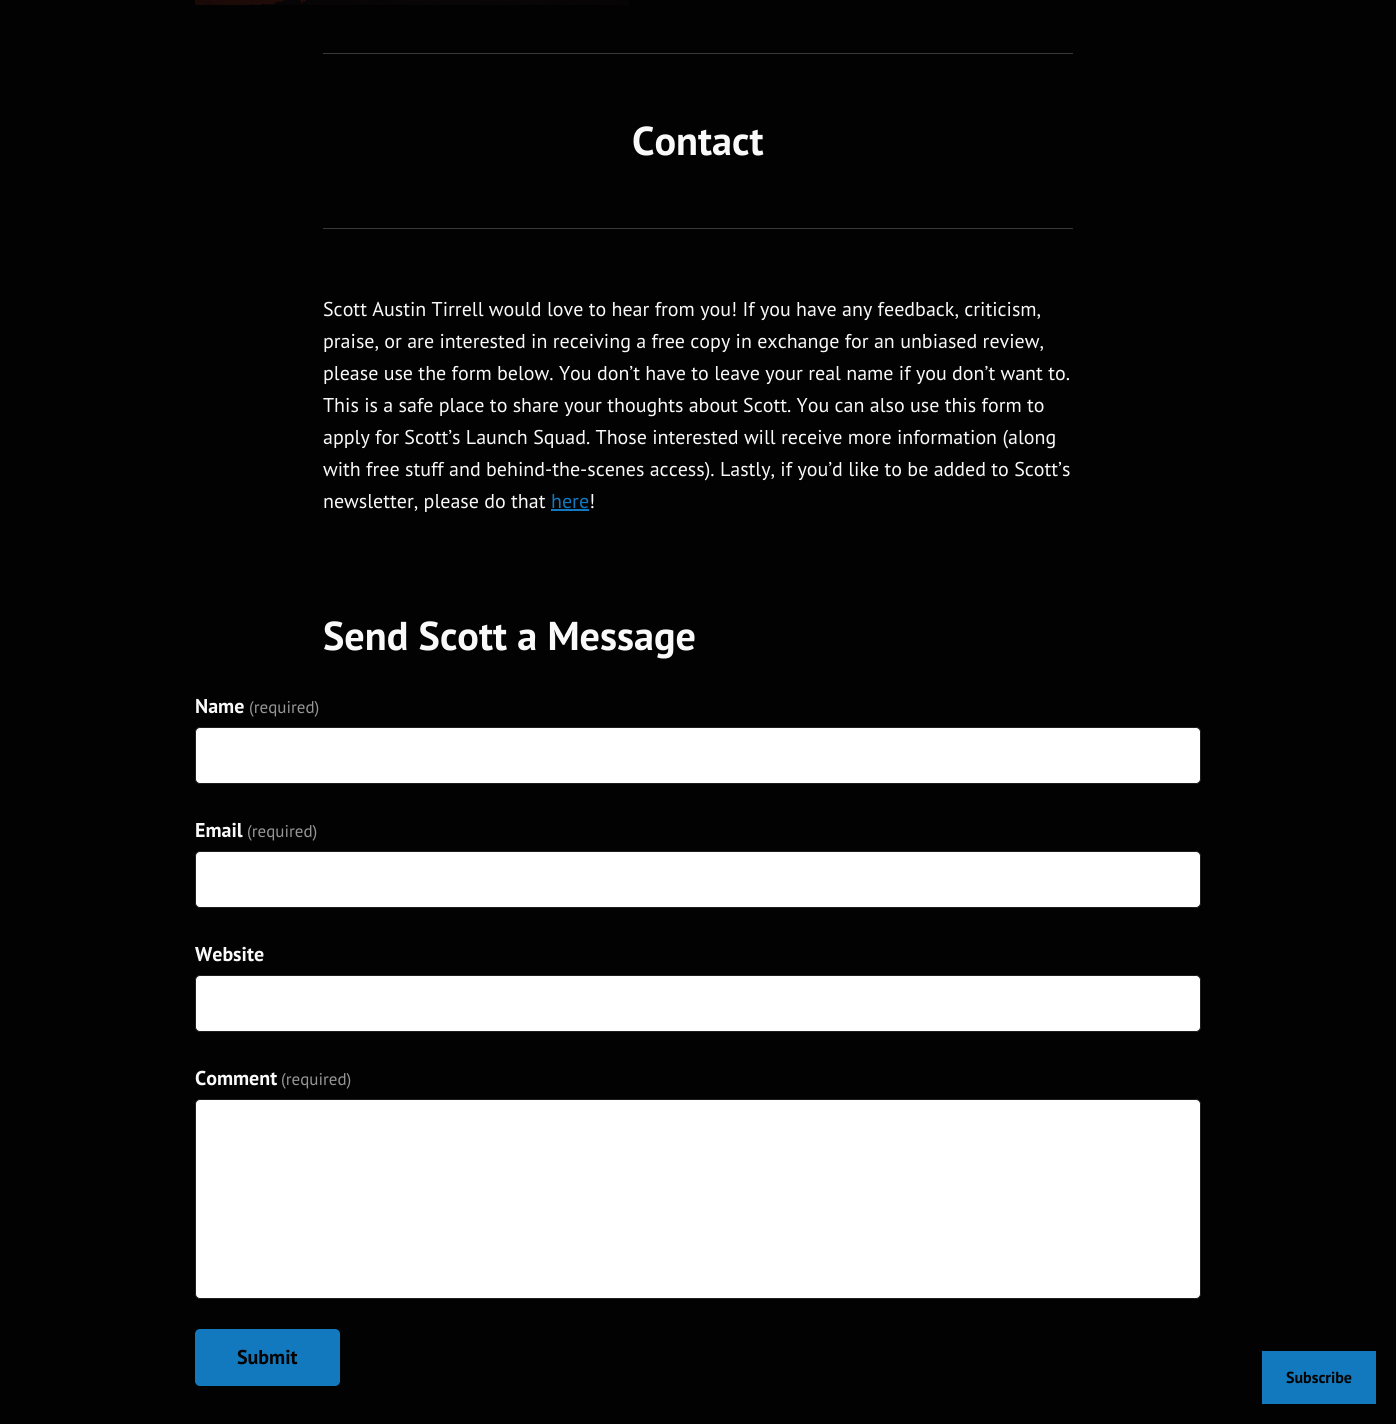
#include <cairo/cairo.h>
#include <math.h>
#include <stddef.h>

typedef struct { double x, y; const char *s; } line_t;
typedef struct { double x, y, w, h; unsigned color; } box_t;
static cairo_t *cr;

static void rgb(unsigned color)
{
	cairo_set_source_rgb(cr, (color >> 16) / 255.0, (color >> 8 & 255) / 255.0, (color & 255) / 255.0);
}

static void rrect(double x, double y, double w, double h, double r)
{
	cairo_new_sub_path(cr);
	cairo_arc(cr, x + w - r, y + h - r, r, 0, M_PI / 2);
	cairo_arc(cr, x + r, y + h - r, r, M_PI / 2, M_PI);
	cairo_arc(cr, x + r, y + r, r, M_PI, 1.5 * M_PI);
	cairo_arc(cr, x + w - r, y + r, r, 1.5 * M_PI, 2 * M_PI);
	cairo_close_path(cr);
}

static void image(const char *path, double x, double y, double w, double h)
{
	cairo_surface_t *image = cairo_image_surface_create_from_png(path);
	cairo_save(cr);
	cairo_set_source_surface(cr, image, x, y);
	cairo_rectangle(cr, x, y, w, h);
	cairo_fill(cr);
	cairo_restore(cr);
	cairo_surface_destroy(image);
}

int main(void) {
	cairo_surface_t *surface = cairo_image_surface_create(CAIRO_FORMAT_RGB24, 1396, 1424);
	cr = cairo_create(surface);
	cairo_font_options_t *options = cairo_font_options_create();
	cairo_font_options_set_hint_metrics(options, CAIRO_HINT_METRICS_OFF);
	cairo_font_options_set_hint_style(options, CAIRO_HINT_STYLE_NONE);
	cairo_set_font_options(cr, options);
	cairo_set_miter_limit(cr, 4);
	rgb(0x020202);
	cairo_paint(cr);
	image("img/1.png", 195, 0, 434, 5);
	{
		static const box_t items[] = {
			{323, 53, 750, 1, 0x363939},
			{323, 228, 750, 1, 0x363939},
			{551, 509, 38, 2, 0x1279be},
		};
		for (size_t i = 0; i < sizeof items / sizeof *items; i++) {
			rgb(items[i].color);
			cairo_rectangle(cr, items[i].x, items[i].y, items[i].w, items[i].h);
			cairo_fill(cr);
		}
	}
	rgb(0xffffff);
	rrect(195.5, 727.5, 1005, 56, 4.5);
	cairo_fill_preserve(cr);
	rgb(0x1d1e1e);
	cairo_set_line_width(cr, 1);
	cairo_stroke(cr);
	rgb(0xffffff);
	rrect(195.5, 851.5, 1005, 56, 4.5);
	cairo_fill_preserve(cr);
	rgb(0x1d1e1e);
	cairo_stroke(cr);
	rgb(0xffffff);
	rrect(195.5, 975.5, 1005, 56, 4.5);
	cairo_fill_preserve(cr);
	rgb(0x1d1e1e);
	cairo_stroke(cr);
	rgb(0xffffff);
	rrect(195.5, 1099.5, 1005, 199, 4.5);
	cairo_fill_preserve(cr);
	rgb(0x1d1e1e);
	cairo_stroke(cr);
	rgb(0x1279be);
	rrect(195, 1329, 145, 57, 5);
	cairo_fill(cr);
	cairo_rectangle(cr, 1262, 1351, 114, 53);
	cairo_fill(cr);
	cairo_select_font_face(cr, "PT Sans", CAIRO_FONT_SLANT_NORMAL, CAIRO_FONT_WEIGHT_BOLD);
	cairo_set_font_size(cr, 40.25);
	rgb(0xf9f9f9);
	cairo_move_to(cr, 632, 155);
	cairo_show_text(cr, "Contact");
	cairo_select_font_face(cr, "PT Sans", CAIRO_FONT_SLANT_NORMAL, CAIRO_FONT_WEIGHT_NORMAL);
	cairo_set_font_size(cr, 20);
	{
		static const line_t items[] = {
			{323, 316, "Scott Austin Tirrell would love to hear from you! If you have any feedback, criticism,"},
			{323, 348, "praise, or are interested in receiving a free copy in exchange for an unbiased review,"},
			{323, 380, "please use the form below. You don’t have to leave your real name if you don’t want to."},
			{323, 412, "This is a safe place to share your thoughts about Scott. You can also use this form to"},
			{323, 444, "apply for Scott’s Launch Squad. Those interested will receive more information (along"},
			{323, 476, "with free stuff and behind-the-scenes access). Lastly, if you’d like to be added to Scott’s"},
			{323, 508, "newsletter, please do that"},
		};
		for (size_t i = 0; i < sizeof items / sizeof *items; i++) {
			cairo_move_to(cr, items[i].x, items[i].y);
			cairo_show_text(cr, items[i].s);
		}
	}
	rgb(0x1279be);
	cairo_move_to(cr, 551, 508);
	cairo_show_text(cr, "here");
	rgb(0xf9f9f9);
	cairo_move_to(cr, 589, 508);
	cairo_show_text(cr, "!");
	cairo_select_font_face(cr, "PT Sans", CAIRO_FONT_SLANT_NORMAL, CAIRO_FONT_WEIGHT_BOLD);
	cairo_set_font_size(cr, 40.25);
	cairo_move_to(cr, 323, 650);
	cairo_show_text(cr, "Send Scott a Message");
	cairo_set_font_size(cr, 20);
	cairo_move_to(cr, 195, 713);
	cairo_show_text(cr, "Name");
	cairo_select_font_face(cr, "PT Sans", CAIRO_FONT_SLANT_NORMAL, CAIRO_FONT_WEIGHT_NORMAL);
	cairo_set_font_size(cr, 17);
	rgb(0x969696);
	cairo_move_to(cr, 249, 713);
	cairo_show_text(cr, "(required)");
	cairo_select_font_face(cr, "PT Sans", CAIRO_FONT_SLANT_NORMAL, CAIRO_FONT_WEIGHT_BOLD);
	cairo_set_font_size(cr, 20);
	rgb(0xf9f9f9);
	cairo_move_to(cr, 195, 837);
	cairo_show_text(cr, "Email");
	cairo_select_font_face(cr, "PT Sans", CAIRO_FONT_SLANT_NORMAL, CAIRO_FONT_WEIGHT_NORMAL);
	cairo_set_font_size(cr, 17);
	rgb(0x969696);
	cairo_move_to(cr, 247, 837);
	cairo_show_text(cr, "(required)");
	cairo_select_font_face(cr, "PT Sans", CAIRO_FONT_SLANT_NORMAL, CAIRO_FONT_WEIGHT_BOLD);
	cairo_set_font_size(cr, 20);
	rgb(0xf9f9f9);
	cairo_move_to(cr, 195, 961);
	cairo_show_text(cr, "Website");
	cairo_move_to(cr, 195, 1085);
	cairo_show_text(cr, "Comment");
	cairo_select_font_face(cr, "PT Sans", CAIRO_FONT_SLANT_NORMAL, CAIRO_FONT_WEIGHT_NORMAL);
	cairo_set_font_size(cr, 17);
	rgb(0x969696);
	cairo_move_to(cr, 281, 1085);
	cairo_show_text(cr, "(required)");
	cairo_select_font_face(cr, "PT Sans", CAIRO_FONT_SLANT_NORMAL, CAIRO_FONT_WEIGHT_BOLD);
	cairo_set_font_size(cr, 20);
	rgb(0x020202);
	cairo_move_to(cr, 237, 1364);
	cairo_show_text(cr, "Submit");
	cairo_set_font_size(cr, 16);
	cairo_move_to(cr, 1286, 1383);
	cairo_show_text(cr, "Subscribe");
	cairo_surface_write_to_png(surface, "page.png");
	cairo_font_options_destroy(options);
	cairo_destroy(cr);
	cairo_surface_destroy(surface);
	return 0;
}
